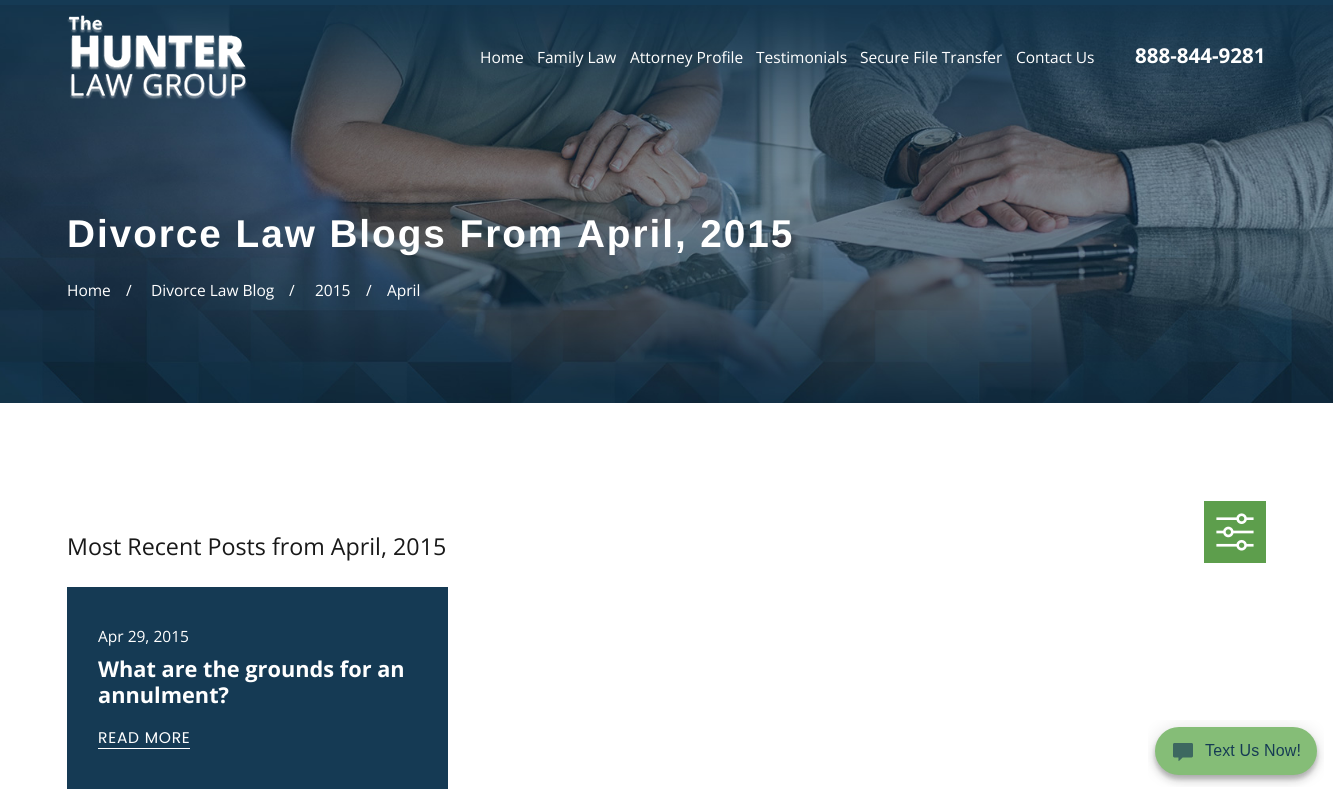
#include <cairo/cairo.h>
#include <math.h>
#include <stddef.h>

typedef struct { double x, y; const char *s; } line_t;
static cairo_t *cr;

static void rgb(unsigned color)
{
	cairo_set_source_rgb(cr, (color >> 16) / 255.0, (color >> 8 & 255) / 255.0, (color & 255) / 255.0);
}

static void tracked(double x, double y, const char *s, double letter, double word)
{
	cairo_move_to(cr, x, y);
	while (*s) {
		char ch[5] = {0};
		int n = 0;
		do ch[n++] = *s++; while ((*s & 0xC0) == 0x80);
		cairo_show_text(cr, ch);
		cairo_rel_move_to(cr, letter + word * (*ch == ' '), 0);
	}
}

static void image(const char *path, double x, double y, double w, double h)
{
	cairo_surface_t *image = cairo_image_surface_create_from_png(path);
	cairo_save(cr);
	cairo_set_source_surface(cr, image, x, y);
	cairo_rectangle(cr, x, y, w, h);
	cairo_fill(cr);
	cairo_restore(cr);
	cairo_surface_destroy(image);
}

int main(void) {
	cairo_surface_t *surface = cairo_image_surface_create(CAIRO_FORMAT_RGB24, 1333, 799);
	cr = cairo_create(surface);
	cairo_font_options_t *options = cairo_font_options_create();
	cairo_font_options_set_hint_metrics(options, CAIRO_HINT_METRICS_OFF);
	cairo_font_options_set_hint_style(options, CAIRO_HINT_STYLE_NONE);
	cairo_set_font_options(cr, options);
	cairo_set_miter_limit(cr, 4);
	rgb(0xffffff);
	cairo_paint(cr);
	image("img/2.png", 0, 5, 1333, 398);
	image("img/1.png", 67, 15, 180, 85);
	rgb(0x153a54);
	cairo_rectangle(cr, 0, 0, 1333, 5);
	cairo_fill(cr);
	rgb(0x5d9e4c);
	cairo_rectangle(cr, 1204, 501, 62, 62);
	cairo_fill(cr);
	image("img/3.png", 1216, 513, 38, 38);
	rgb(0x153a54);
	cairo_rectangle(cr, 67, 587, 381, 202);
	cairo_fill(cr);
	rgb(0xffffff);
	cairo_rectangle(cr, 98, 748, 92, 1);
	cairo_fill(cr);
	image("img/4.png", 1148, 720, 176, 67);
	cairo_select_font_face(cr, "Open Sans", CAIRO_FONT_SLANT_NORMAL, CAIRO_FONT_WEIGHT_NORMAL);
	cairo_set_font_size(cr, 15.5);
	{
		static const line_t items[] = {
			{480, 63, "Home"},
			{537, 63, "Family Law"},
			{630, 63, "Attorney Profile"},
			{756, 63, "Testimonials"},
			{860, 63, "Secure File Transfer"},
			{1016, 63, "Contact Us"},
		};
		for (size_t i = 0; i < sizeof items / sizeof *items; i++) {
			cairo_move_to(cr, items[i].x, items[i].y);
			cairo_show_text(cr, items[i].s);
		}
	}
	cairo_select_font_face(cr, "Open Sans", CAIRO_FONT_SLANT_NORMAL, CAIRO_FONT_WEIGHT_BOLD);
	cairo_set_font_size(cr, 20.5);
	cairo_move_to(cr, 1135, 63);
	cairo_show_text(cr, "888-844-9281");
	cairo_select_font_face(cr, "Liberation Sans", CAIRO_FONT_SLANT_NORMAL, CAIRO_FONT_WEIGHT_BOLD);
	cairo_set_font_size(cr, 38.75);
	tracked(67, 247, "Divorce Law Blogs From April, 2015", 1.95, 0);
	cairo_select_font_face(cr, "Open Sans", CAIRO_FONT_SLANT_NORMAL, CAIRO_FONT_WEIGHT_NORMAL);
	cairo_set_font_size(cr, 15.5);
	{
		static const line_t items[] = {
			{67, 296, "Home"},
			{126, 296, "/"},
			{151, 296, "Divorce Law Blog"},
			{289, 296, "/"},
			{315, 296, "2015"},
			{366, 296, "/"},
			{387, 296, "April"},
		};
		for (size_t i = 0; i < sizeof items / sizeof *items; i++) {
			cairo_move_to(cr, items[i].x, items[i].y);
			cairo_show_text(cr, items[i].s);
		}
	}
	cairo_set_font_size(cr, 23.25);
	rgb(0x191919);
	cairo_move_to(cr, 67, 555);
	cairo_show_text(cr, "Most Recent Posts from April, 2015");
	cairo_set_font_size(cr, 15.5);
	rgb(0xffffff);
	cairo_move_to(cr, 98, 642);
	cairo_show_text(cr, "Apr 29, 2015");
	cairo_select_font_face(cr, "Open Sans", CAIRO_FONT_SLANT_NORMAL, CAIRO_FONT_WEIGHT_BOLD);
	cairo_set_font_size(cr, 21.75);
	cairo_move_to(cr, 98, 677);
	cairo_show_text(cr, "What are the grounds for an");
	cairo_move_to(cr, 98, 703);
	cairo_show_text(cr, "annulment?");
	cairo_select_font_face(cr, "Poppins", CAIRO_FONT_SLANT_NORMAL, CAIRO_FONT_WEIGHT_NORMAL);
	cairo_set_font_size(cr, 15.5);
	tracked(98, 743, "READ MORE", 0.75, 0);
	cairo_surface_write_to_png(surface, "page.png");
	cairo_font_options_destroy(options);
	cairo_destroy(cr);
	cairo_surface_destroy(surface);
	return 0;
}
